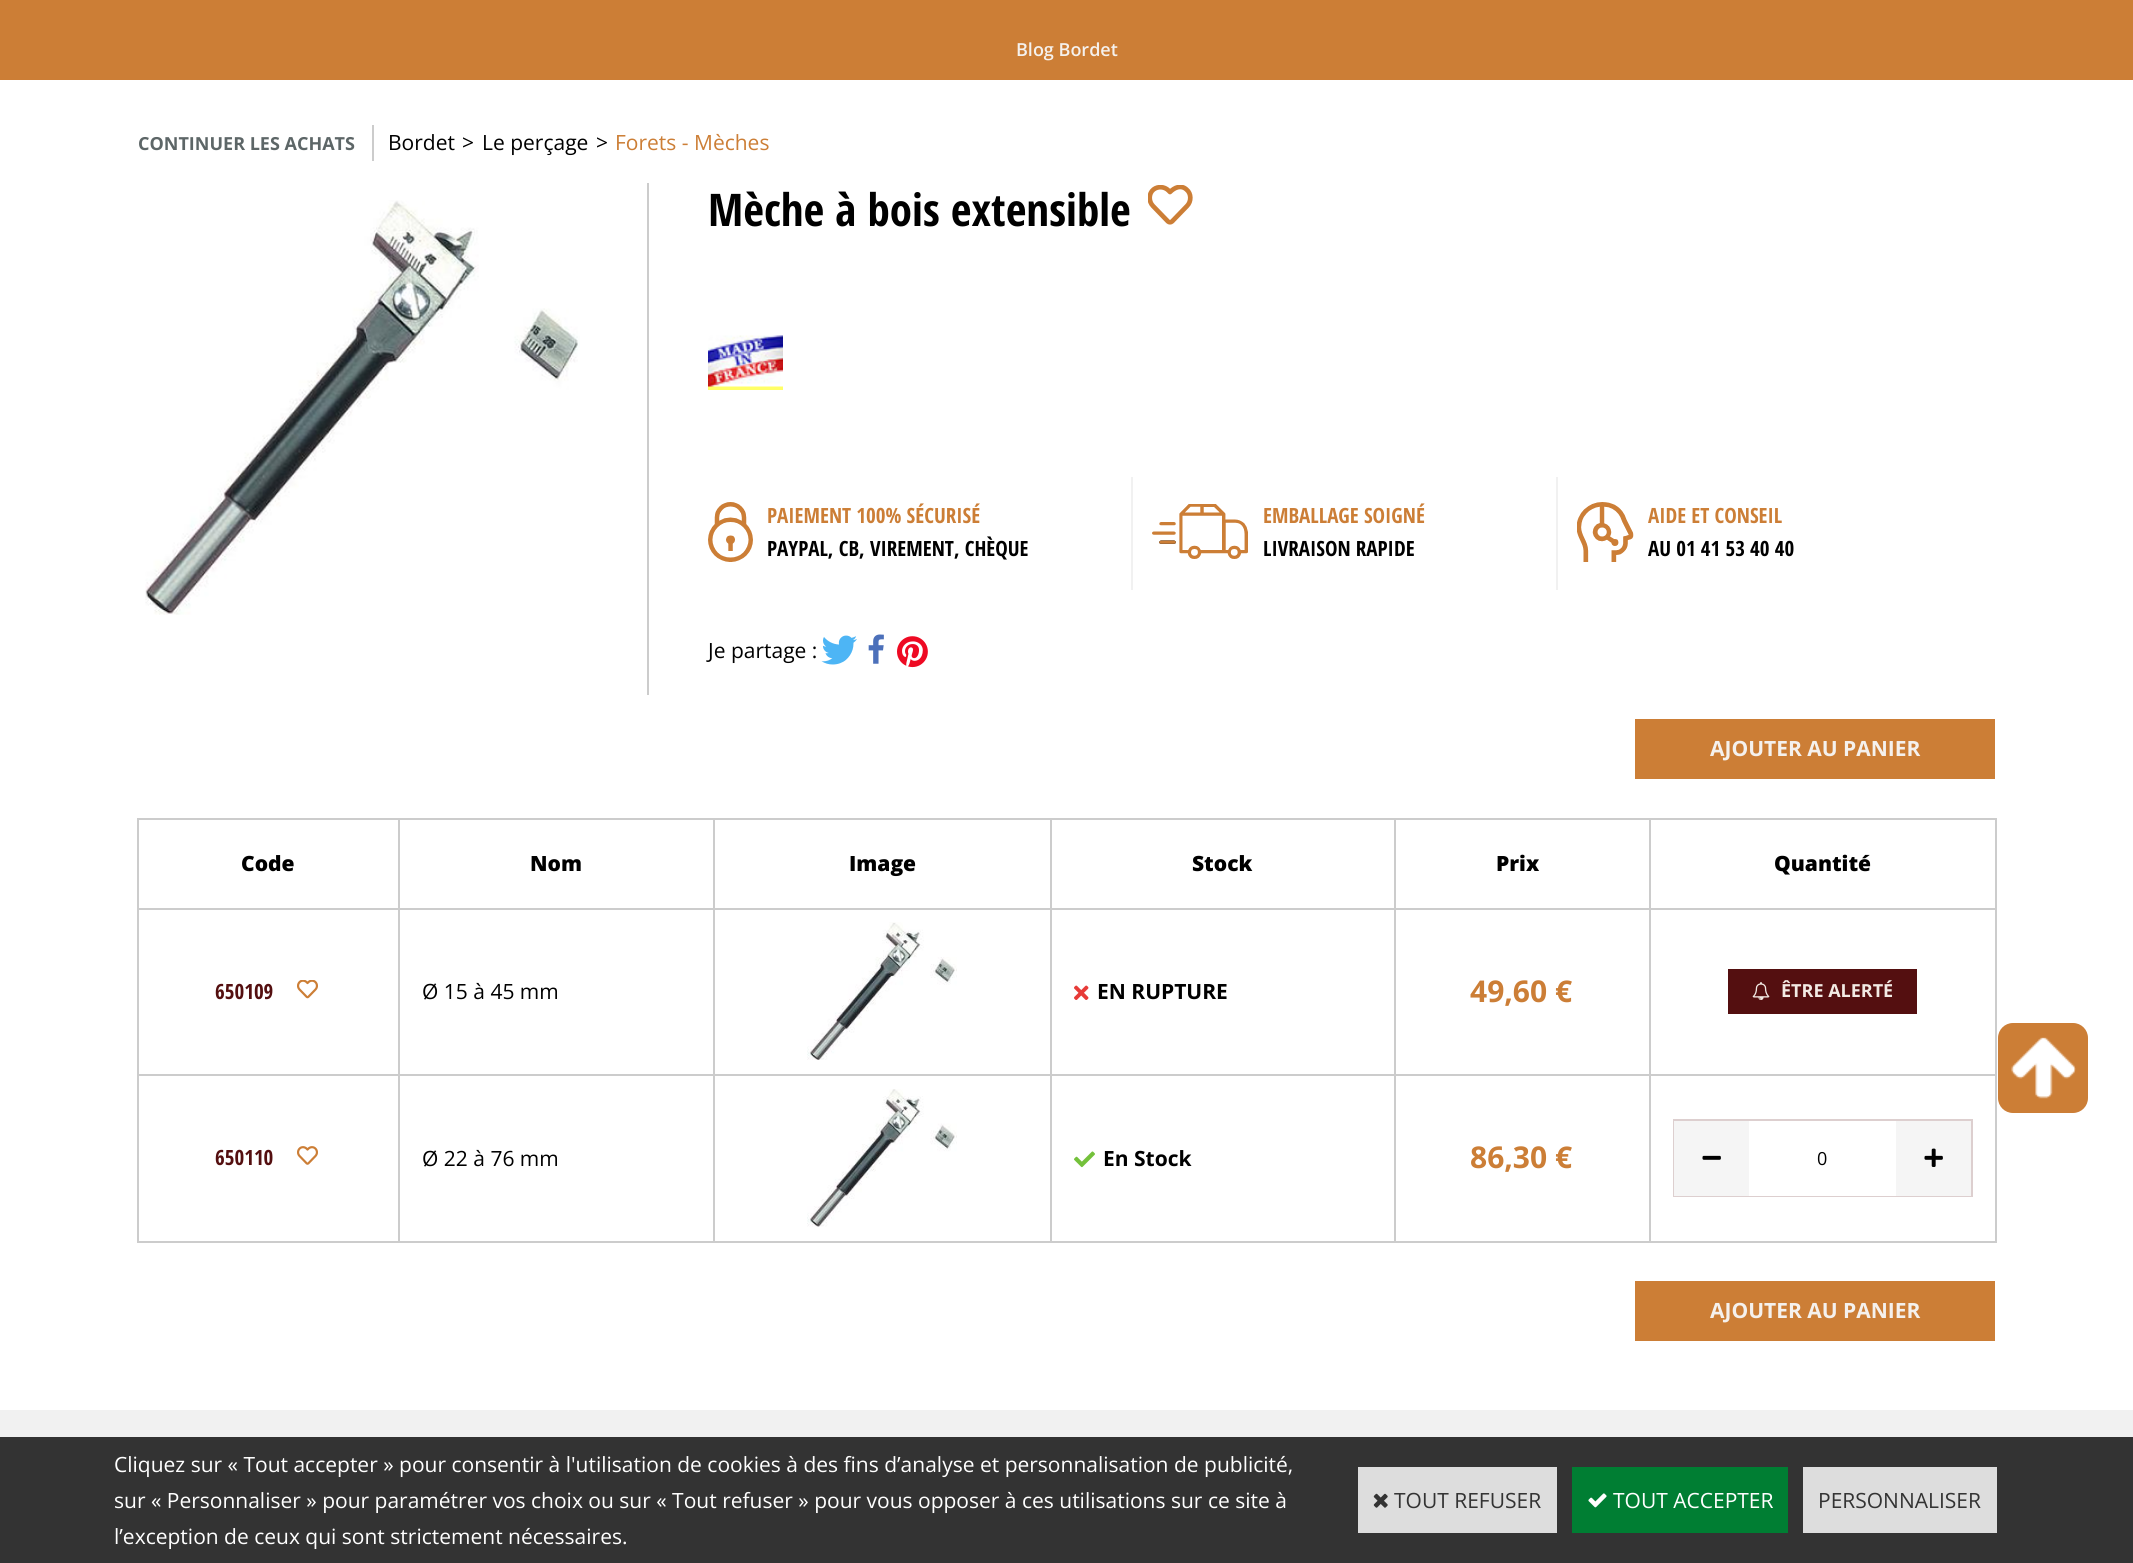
#include <cairo/cairo.h>
#include <math.h>
#include <stddef.h>

typedef struct { double x, y; const char *s; } line_t;
typedef struct { double x, y, w, h; unsigned color; } box_t;
static cairo_t *cr;

static void rgb(unsigned color)
{
	cairo_set_source_rgb(cr, (color >> 16) / 255.0, (color >> 8 & 255) / 255.0, (color & 255) / 255.0);
}

static void rrect(double x, double y, double w, double h, double r)
{
	cairo_new_sub_path(cr);
	cairo_arc(cr, x + w - r, y + h - r, r, 0, M_PI / 2);
	cairo_arc(cr, x + r, y + h - r, r, M_PI / 2, M_PI);
	cairo_arc(cr, x + r, y + r, r, M_PI, 1.5 * M_PI);
	cairo_arc(cr, x + w - r, y + r, r, 1.5 * M_PI, 2 * M_PI);
	cairo_close_path(cr);
}

static void image(const char *path, double x, double y, double w, double h)
{
	cairo_surface_t *image = cairo_image_surface_create_from_png(path);
	cairo_save(cr);
	cairo_set_source_surface(cr, image, x, y);
	cairo_rectangle(cr, x, y, w, h);
	cairo_fill(cr);
	cairo_restore(cr);
	cairo_surface_destroy(image);
}

int main(void) {
	cairo_surface_t *surface = cairo_image_surface_create(CAIRO_FORMAT_RGB24, 2133, 1563);
	cr = cairo_create(surface);
	cairo_font_options_t *options = cairo_font_options_create();
	cairo_font_options_set_hint_metrics(options, CAIRO_HINT_METRICS_OFF);
	cairo_font_options_set_hint_style(options, CAIRO_HINT_STYLE_NONE);
	cairo_set_font_options(cr, options);
	cairo_set_miter_limit(cr, 4);
	rgb(0xcc7e36);
	cairo_paint(cr);
	rgb(0xffffff);
	cairo_rectangle(cr, 0, 80, 2133, 1330);
	cairo_fill(cr);
	rgb(0xcccccc);
	cairo_rectangle(cr, 372, 125, 2, 36);
	cairo_fill(cr);
	image("img/1.png", 145, 200, 435, 415);
	cairo_rectangle(cr, 647, 183, 2, 512);
	cairo_fill(cr);
	cairo_save(cr);
	cairo_rectangle(cr, 1148, 185, 45, 40);
	cairo_clip(cr);
	cairo_new_path(cr);
	cairo_move_to(cr, 1186.5, 189.5);
	cairo_curve_to(cr, 1181, 184.5, 1174.5, 187.5, 1170, 192);
	cairo_line_to(cr, 1168.5, 190.5);
	cairo_curve_to(cr, 1164.5, 186.5, 1158, 186, 1153.5, 189.5);
	cairo_curve_to(cr, 1148.5, 193.5, 1148.5, 201.5, 1153, 206);
	cairo_line_to(cr, 1168, 221.5);
	cairo_curve_to(cr, 1169, 222.5, 1171, 222.5, 1172, 221.5);
	cairo_line_to(cr, 1187, 206);
	cairo_curve_to(cr, 1191.5, 201.5, 1191.5, 193.5, 1186.5, 189.5);
	cairo_close_path(cr);
	rgb(0xcc7e36);
	cairo_set_line_width(cr, 4.7);
	cairo_set_line_cap(cr, CAIRO_LINE_CAP_ROUND);
	cairo_set_line_join(cr, CAIRO_LINE_JOIN_ROUND);
	cairo_stroke(cr);
	cairo_restore(cr);
	rgb(0xffff66);
	cairo_rectangle(cr, 708, 386, 75, 4);
	cairo_fill(cr);
	image("img/2.png", 708, 335, 75, 52);
	image("img/3.png", 708, 502, 45, 60);
	rgb(0xf1f1f1);
	cairo_rectangle(cr, 1131, 477, 2, 113);
	cairo_fill(cr);
	image("img/4.png", 1152, 504, 96, 55);
	cairo_rectangle(cr, 1556, 477, 2, 113);
	cairo_fill(cr);
	image("img/5.png", 1577, 502, 57, 60);
	image("img/6.png", 821, 635, 36, 30);
	image("img/7.png", 868, 634, 16, 30);
	image("img/8.png", 897, 636, 31, 32);
	{
		static const box_t items[] = {
			{1635, 719, 360, 60, 0xcc7e36},
			{1995, 818, 2, 424, 0xcccccc},
			{137, 818, 2, 424, 0xcccccc},
			{137, 818, 1860, 2, 0xcccccc},
			{137, 908, 1860, 2, 0xcccccc},
		};
		for (size_t i = 0; i < sizeof items / sizeof *items; i++) {
			rgb(items[i].color);
			cairo_rectangle(cr, items[i].x, items[i].y, items[i].w, items[i].h);
			cairo_fill(cr);
		}
	}
	image("img/9.png", 297, 980, 21, 19);
	image("img/10.png", 807, 922, 150, 138);
	image("img/11.png", 1074, 985, 15, 15);
	rgb(0x540f10);
	cairo_rectangle(cr, 1728, 969, 189, 45);
	cairo_fill(cr);
	image("img/12.png", 1752, 982, 18, 18);
	rgb(0xcccccc);
	cairo_rectangle(cr, 137, 1074, 1860, 2);
	cairo_fill(cr);
	cairo_rectangle(cr, 137, 1241, 1860, 2);
	cairo_fill(cr);
	image("img/13.png", 297, 1146, 21, 19);
	cairo_rectangle(cr, 398, 818, 2, 424);
	cairo_fill(cr);
	cairo_rectangle(cr, 713, 818, 2, 424);
	cairo_fill(cr);
	image("img/14.png", 807, 1089, 150, 138);
	cairo_rectangle(cr, 1050, 818, 2, 424);
	cairo_fill(cr);
	image("img/15.png", 1074, 1151, 21, 17);
	cairo_rectangle(cr, 1394, 818, 2, 424);
	cairo_fill(cr);
	cairo_rectangle(cr, 1649, 818, 2, 424);
	cairo_fill(cr);
	cairo_rectangle(cr, 1674, 1120, 298, 76);
	rgb(0xddcfcf);
	cairo_stroke(cr);
	rgb(0xf5f5f5);
	cairo_rectangle(cr, 1674, 1121, 75, 75);
	cairo_fill(cr);
	image("img/16.png", 1702, 1155, 19, 5);
	rgb(0xffffff);
	cairo_rectangle(cr, 1749, 1195, 147, 1);
	cairo_fill(cr);
	rgb(0xf5f5f5);
	cairo_rectangle(cr, 1896, 1121, 75, 75);
	cairo_fill(cr);
	image("img/17.png", 1924, 1148, 19, 19);
	rgb(0xcc7e36);
	cairo_rectangle(cr, 1635, 1281, 360, 60);
	cairo_fill(cr);
	rgb(0xf1f1f1);
	cairo_rectangle(cr, 0, 1410, 2133, 27);
	cairo_fill(cr);
	rgb(0xcc7e36);
	rrect(1998, 1023, 90, 90, 15);
	cairo_fill(cr);
	image("img/18.png", 2011, 1037, 65, 62);
	rgb(0x333333);
	cairo_rectangle(cr, 0, 1437, 2133, 126);
	cairo_fill(cr);
	rgb(0xdddddd);
	cairo_rectangle(cr, 1358, 1467, 199, 66);
	cairo_fill(cr);
	image("img/19.png", 1373, 1493, 15, 15);
	rgb(0x007e33);
	cairo_rectangle(cr, 1572, 1467, 216, 66);
	cairo_fill(cr);
	image("img/20.png", 1588, 1493, 19, 15);
	rgb(0xdddddd);
	cairo_rectangle(cr, 1803, 1467, 194, 66);
	cairo_fill(cr);
	cairo_select_font_face(cr, "Open Sans SemiBold", CAIRO_FONT_SLANT_NORMAL, CAIRO_FONT_WEIGHT_NORMAL);
	cairo_set_font_size(cr, 18);
	rgb(0xf5f1ed);
	cairo_move_to(cr, 1016, 56);
	cairo_show_text(cr, "Blog Bordet");
	cairo_select_font_face(cr, "Open Sans", CAIRO_FONT_SLANT_NORMAL, CAIRO_FONT_WEIGHT_BOLD);
	rgb(0x5d6667);
	cairo_move_to(cr, 138, 150);
	cairo_show_text(cr, "CONTINUER LES ACHATS");
	cairo_select_font_face(cr, "Open Sans", CAIRO_FONT_SLANT_NORMAL, CAIRO_FONT_WEIGHT_NORMAL);
	cairo_set_font_size(cr, 21);
	rgb(0x000000);
	{
		static const line_t items[] = {
			{388, 150, "Bordet"},
			{462, 150, ">"},
			{482, 150, "Le perçage"},
			{596, 150, ">"},
		};
		for (size_t i = 0; i < sizeof items / sizeof *items; i++) {
			cairo_move_to(cr, items[i].x, items[i].y);
			cairo_show_text(cr, items[i].s);
		}
	}
	rgb(0xcc7e36);
	cairo_move_to(cr, 615, 150);
	cairo_show_text(cr, "Forets - Mèches");
	cairo_select_font_face(cr, "Open Sans Condensed", CAIRO_FONT_SLANT_NORMAL, CAIRO_FONT_WEIGHT_BOLD);
	cairo_set_font_size(cr, 45);
	rgb(0x000000);
	cairo_move_to(cr, 708, 226);
	cairo_show_text(cr, "Mèche à bois extensible");
	cairo_set_font_size(cr, 21);
	rgb(0xcc7e36);
	cairo_move_to(cr, 767, 523);
	cairo_show_text(cr, "PAIEMENT 100% SÉCURISÉ");
	rgb(0x000000);
	cairo_move_to(cr, 767, 556);
	cairo_show_text(cr, "PAYPAL, CB, VIREMENT, CHÈQUE");
	rgb(0xcc7e36);
	cairo_move_to(cr, 1263, 523);
	cairo_show_text(cr, "EMBALLAGE SOIGNÉ");
	rgb(0x000000);
	cairo_move_to(cr, 1263, 556);
	cairo_show_text(cr, "LIVRAISON RAPIDE");
	rgb(0xcc7e36);
	cairo_move_to(cr, 1648, 523);
	cairo_show_text(cr, "AIDE ET CONSEIL");
	rgb(0x000000);
	cairo_move_to(cr, 1648, 556);
	cairo_show_text(cr, "AU 01 41 53 40 40");
	cairo_select_font_face(cr, "Open Sans", CAIRO_FONT_SLANT_NORMAL, CAIRO_FONT_WEIGHT_NORMAL);
	cairo_move_to(cr, 708, 658);
	cairo_show_text(cr, "Je partage :");
	cairo_select_font_face(cr, "Open Sans", CAIRO_FONT_SLANT_NORMAL, CAIRO_FONT_WEIGHT_BOLD);
	rgb(0xf5f1ed);
	cairo_move_to(cr, 1710, 756);
	cairo_show_text(cr, "AJOUTER AU PANIER");
	cairo_select_font_face(cr, "Open Sans ExtraBold", CAIRO_FONT_SLANT_NORMAL, CAIRO_FONT_WEIGHT_NORMAL);
	rgb(0x000000);
	{
		static const line_t items[] = {
			{241, 871, "Code"},
			{530, 871, "Nom"},
			{849, 871, "Image"},
			{1192, 871, "Stock"},
			{1496, 871, "Prix"},
			{1774, 871, "Quantité"},
		};
		for (size_t i = 0; i < sizeof items / sizeof *items; i++) {
			cairo_move_to(cr, items[i].x, items[i].y);
			cairo_show_text(cr, items[i].s);
		}
	}
	cairo_select_font_face(cr, "Open Sans Condensed", CAIRO_FONT_SLANT_NORMAL, CAIRO_FONT_WEIGHT_BOLD);
	rgb(0x540f10);
	cairo_move_to(cr, 215, 999);
	cairo_show_text(cr, "650109");
	cairo_select_font_face(cr, "Open Sans", CAIRO_FONT_SLANT_NORMAL, CAIRO_FONT_WEIGHT_NORMAL);
	rgb(0x000000);
	cairo_move_to(cr, 422, 999);
	cairo_show_text(cr, "Ø 15 à 45 mm");
	cairo_select_font_face(cr, "Open Sans", CAIRO_FONT_SLANT_NORMAL, CAIRO_FONT_WEIGHT_BOLD);
	cairo_move_to(cr, 1097, 999);
	cairo_show_text(cr, "EN RUPTURE");
	cairo_set_font_size(cr, 30);
	rgb(0xcc7e36);
	cairo_move_to(cr, 1470, 1002);
	cairo_show_text(cr, "49,60 €");
	cairo_set_font_size(cr, 18);
	rgb(0xf2eae4);
	cairo_move_to(cr, 1781, 997);
	cairo_show_text(cr, "ÊTRE ALERTÉ");
	cairo_select_font_face(cr, "Open Sans Condensed", CAIRO_FONT_SLANT_NORMAL, CAIRO_FONT_WEIGHT_BOLD);
	cairo_set_font_size(cr, 21);
	rgb(0x540f10);
	cairo_move_to(cr, 215, 1165);
	cairo_show_text(cr, "650110");
	cairo_select_font_face(cr, "Open Sans", CAIRO_FONT_SLANT_NORMAL, CAIRO_FONT_WEIGHT_NORMAL);
	rgb(0x000000);
	cairo_move_to(cr, 422, 1166);
	cairo_show_text(cr, "Ø 22 à 76 mm");
	cairo_select_font_face(cr, "Open Sans", CAIRO_FONT_SLANT_NORMAL, CAIRO_FONT_WEIGHT_BOLD);
	cairo_move_to(cr, 1103, 1166);
	cairo_show_text(cr, "En Stock");
	cairo_set_font_size(cr, 30);
	rgb(0xcc7e36);
	cairo_move_to(cr, 1470, 1168);
	cairo_show_text(cr, "86,30 €");
	cairo_select_font_face(cr, "Open Sans", CAIRO_FONT_SLANT_NORMAL, CAIRO_FONT_WEIGHT_NORMAL);
	cairo_set_font_size(cr, 18);
	rgb(0x000000);
	cairo_move_to(cr, 1817, 1165);
	cairo_show_text(cr, "0");
	cairo_select_font_face(cr, "Open Sans", CAIRO_FONT_SLANT_NORMAL, CAIRO_FONT_WEIGHT_BOLD);
	cairo_set_font_size(cr, 21);
	rgb(0xf5f1ed);
	cairo_move_to(cr, 1710, 1318);
	cairo_show_text(cr, "AJOUTER AU PANIER");
	cairo_select_font_face(cr, "Open Sans", CAIRO_FONT_SLANT_NORMAL, CAIRO_FONT_WEIGHT_NORMAL);
	rgb(0xffffff);
	{
		static const line_t items[] = {
			{114, 1472, "Cliquez sur « Tout accepter » pour consentir à l'utilisation de cookies à des fins d’analyse et personnalisation de publicité,"},
			{114, 1508, "sur « Personnaliser » pour paramétrer vos choix ou sur « Tout refuser » pour vous opposer à ces utilisations sur ce site à"},
			{114, 1544, "l’exception de ceux qui sont strictement nécessaires."},
		};
		for (size_t i = 0; i < sizeof items / sizeof *items; i++) {
			cairo_move_to(cr, items[i].x, items[i].y);
			cairo_show_text(cr, items[i].s);
		}
	}
	rgb(0x333333);
	cairo_move_to(cr, 1394, 1508);
	cairo_show_text(cr, "TOUT REFUSER");
	rgb(0xffffff);
	cairo_move_to(cr, 1613, 1508);
	cairo_show_text(cr, "TOUT ACCEPTER");
	rgb(0x333333);
	cairo_move_to(cr, 1818, 1508);
	cairo_show_text(cr, "PERSONNALISER");
	cairo_surface_write_to_png(surface, "page.png");
	cairo_font_options_destroy(options);
	cairo_destroy(cr);
	cairo_surface_destroy(surface);
	return 0;
}
